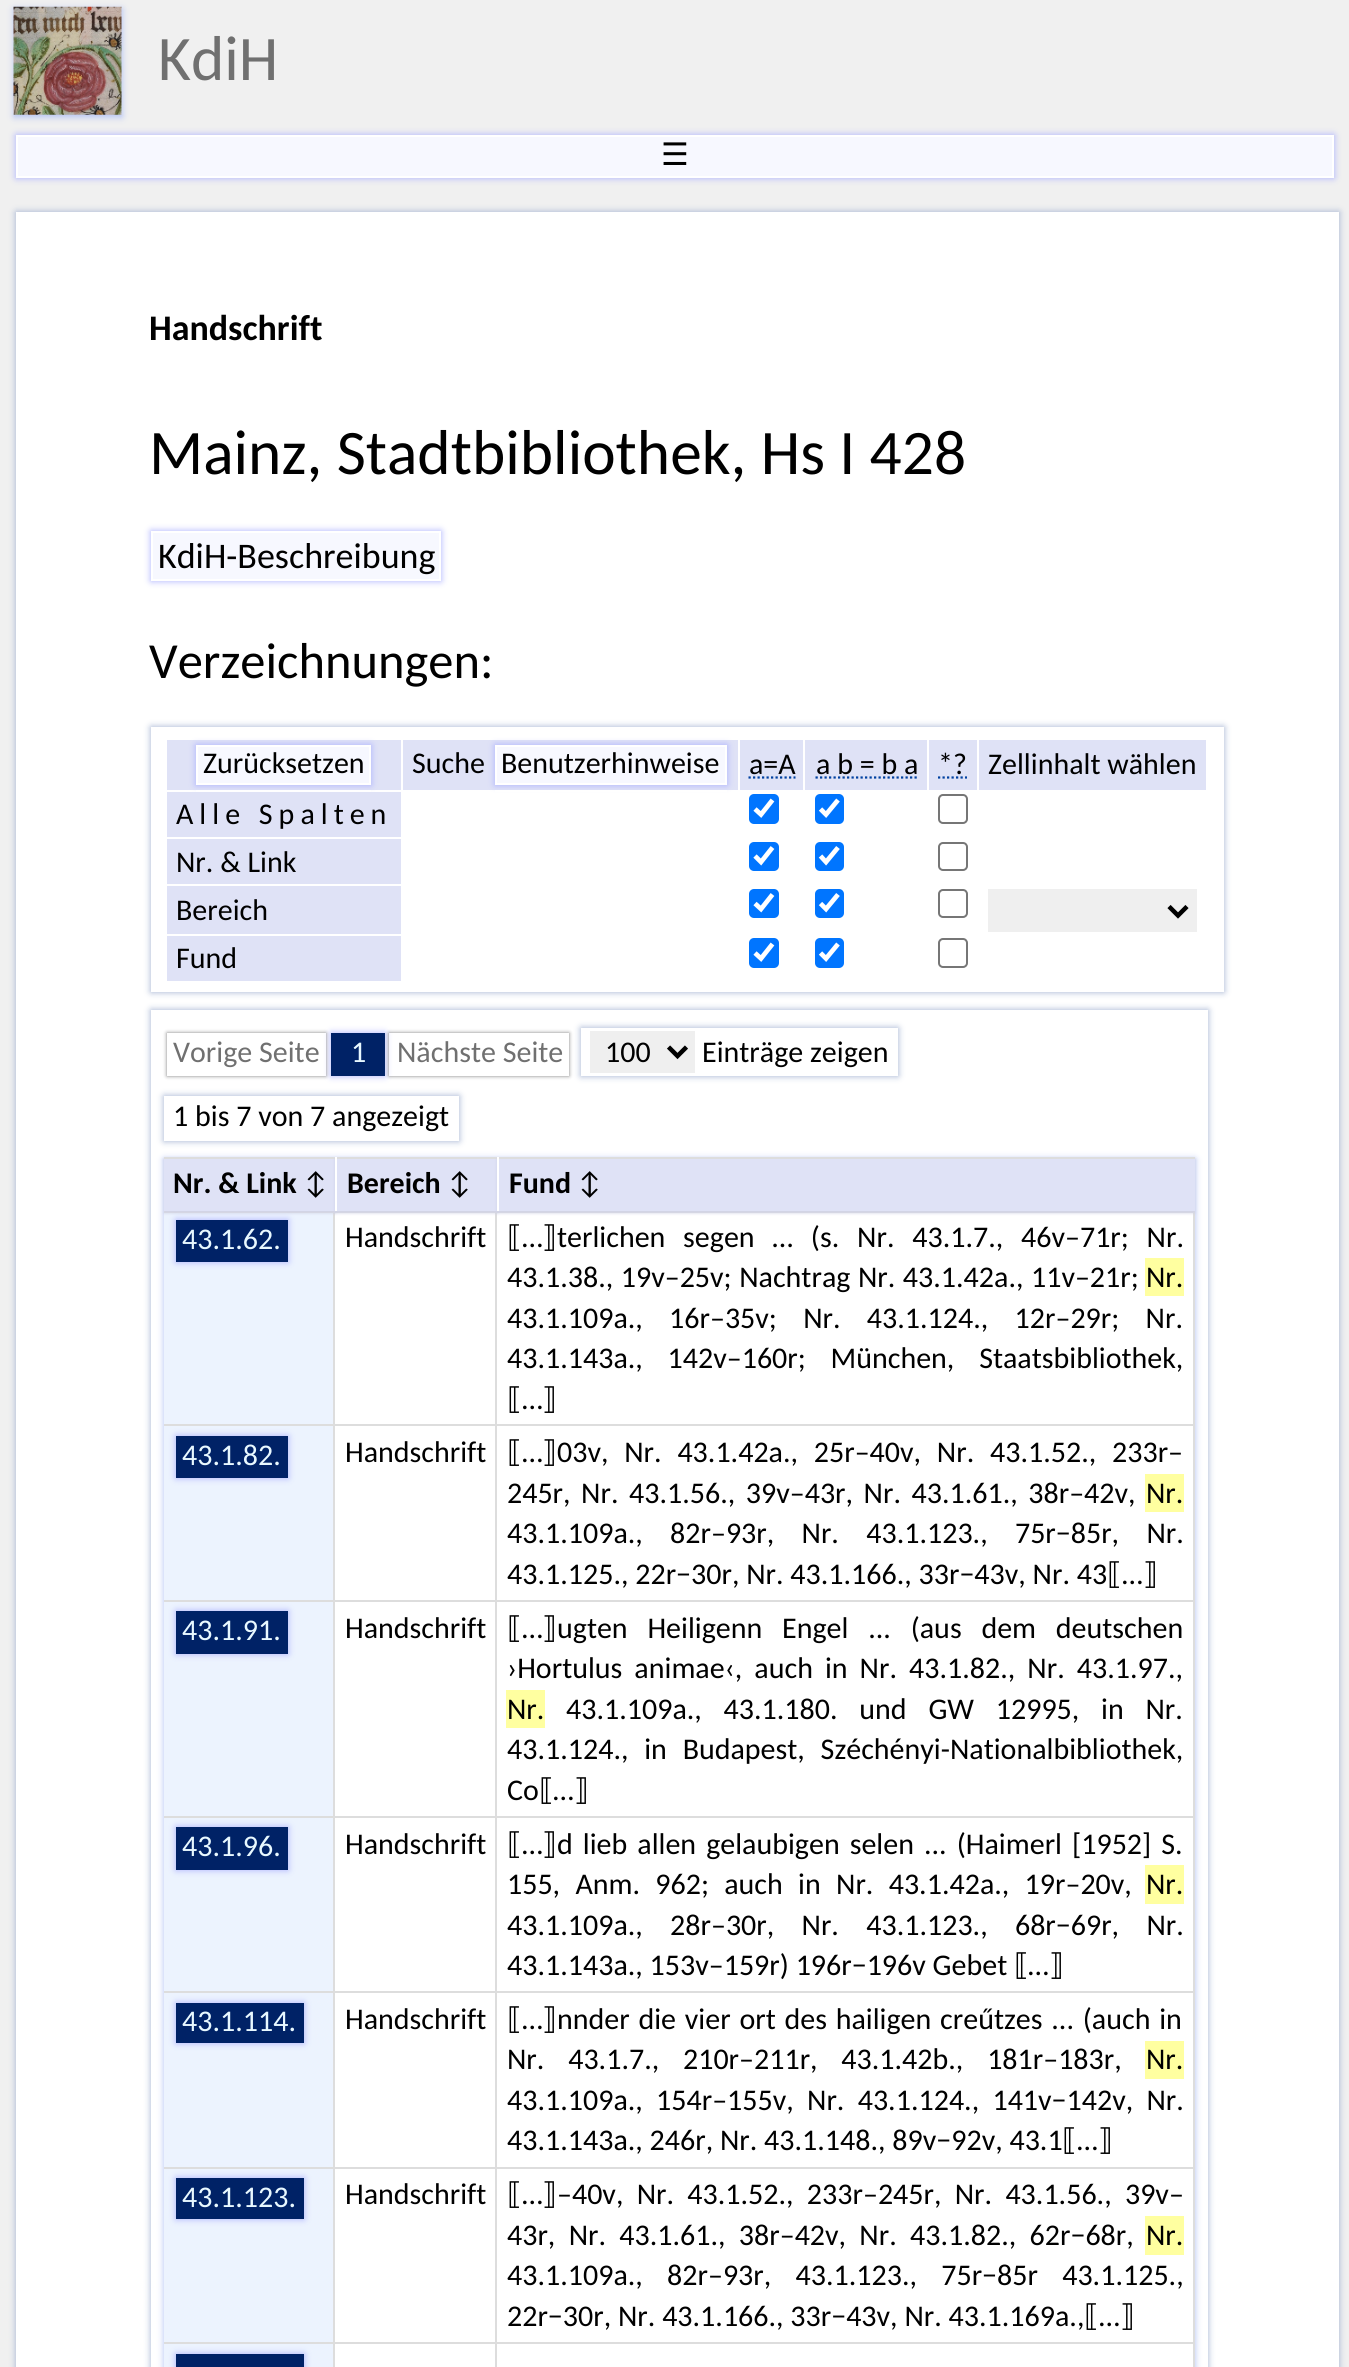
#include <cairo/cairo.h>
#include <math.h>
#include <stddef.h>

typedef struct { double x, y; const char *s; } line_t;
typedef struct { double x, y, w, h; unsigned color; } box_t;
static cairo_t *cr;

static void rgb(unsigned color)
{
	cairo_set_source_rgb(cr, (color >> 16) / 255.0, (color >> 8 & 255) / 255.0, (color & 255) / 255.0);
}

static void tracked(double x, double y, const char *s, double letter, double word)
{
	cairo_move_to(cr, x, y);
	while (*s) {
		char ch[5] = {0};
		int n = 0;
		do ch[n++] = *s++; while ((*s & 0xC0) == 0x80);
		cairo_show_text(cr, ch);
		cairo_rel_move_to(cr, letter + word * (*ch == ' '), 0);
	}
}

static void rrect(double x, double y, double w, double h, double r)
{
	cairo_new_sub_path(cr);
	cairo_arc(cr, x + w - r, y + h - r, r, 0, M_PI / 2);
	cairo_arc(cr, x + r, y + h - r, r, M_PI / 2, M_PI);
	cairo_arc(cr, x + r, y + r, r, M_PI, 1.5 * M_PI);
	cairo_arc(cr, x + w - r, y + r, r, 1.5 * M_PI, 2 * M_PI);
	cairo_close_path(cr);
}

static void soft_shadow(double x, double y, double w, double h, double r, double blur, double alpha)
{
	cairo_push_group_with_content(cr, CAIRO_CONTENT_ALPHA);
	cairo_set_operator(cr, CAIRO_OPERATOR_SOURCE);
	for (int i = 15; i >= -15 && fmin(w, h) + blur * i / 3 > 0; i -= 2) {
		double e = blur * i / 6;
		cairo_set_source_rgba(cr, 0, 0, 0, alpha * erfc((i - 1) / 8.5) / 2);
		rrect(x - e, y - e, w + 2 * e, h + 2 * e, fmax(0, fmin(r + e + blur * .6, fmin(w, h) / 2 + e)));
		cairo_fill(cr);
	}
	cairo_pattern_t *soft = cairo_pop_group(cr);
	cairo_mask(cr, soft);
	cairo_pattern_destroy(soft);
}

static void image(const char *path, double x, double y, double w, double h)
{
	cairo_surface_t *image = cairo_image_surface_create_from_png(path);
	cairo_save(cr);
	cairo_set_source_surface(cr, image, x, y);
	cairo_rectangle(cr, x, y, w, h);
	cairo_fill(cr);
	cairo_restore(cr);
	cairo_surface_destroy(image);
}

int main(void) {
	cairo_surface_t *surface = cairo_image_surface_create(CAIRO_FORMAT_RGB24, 1349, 2367);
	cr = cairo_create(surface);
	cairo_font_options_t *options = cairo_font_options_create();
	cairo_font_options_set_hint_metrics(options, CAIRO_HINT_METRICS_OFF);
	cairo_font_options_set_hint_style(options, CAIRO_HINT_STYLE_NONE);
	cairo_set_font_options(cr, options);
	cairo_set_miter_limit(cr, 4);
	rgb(0xf0f0f0);
	cairo_paint(cr);
	rgb(0xb0c0f4);
	soft_shadow(14, 9, 108, 108, 0, 3.5, 1);
	image("img/1.png", 13, 6, 109, 109);
	rgb(0xaaafff);
	soft_shadow(16, 135, 1318, 43, 0, 3.5, 1);
	rgb(0xf7f8ff);
	cairo_rectangle(cr, 17, 136, 1316, 41);
	cairo_fill_preserve(cr);
	rgb(0xffffff);
	cairo_stroke(cr);
	rgb(0xa0b0d0);
	soft_shadow(16, 212, 1323, 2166, 0, 3.5, 1);
	rgb(0xffffff);
	cairo_rectangle(cr, 16, 212, 1323, 2155);
	cairo_fill(cr);
	rgb(0xaaafff);
	soft_shadow(151, 531, 290, 50, 0, 3.5, 1);
	rgb(0xf7f8ff);
	cairo_rectangle(cr, 152, 532, 288, 48);
	cairo_fill_preserve(cr);
	rgb(0xffffff);
	cairo_stroke(cr);
	cairo_save(cr);
	cairo_set_fill_rule(cr, CAIRO_FILL_RULE_EVEN_ODD);
	cairo_new_path(cr);
	cairo_move_to(cr, 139, 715);
	cairo_line_to(cr, 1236, 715);
	cairo_line_to(cr, 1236, 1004);
	cairo_line_to(cr, 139, 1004);
	cairo_close_path(cr);
	cairo_move_to(cr, 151, 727);
	cairo_line_to(cr, 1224, 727);
	cairo_line_to(cr, 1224, 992);
	cairo_line_to(cr, 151, 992);
	cairo_close_path(cr);
	cairo_clip(cr);
	rgb(0xa0b0d0);
	soft_shadow(151, 727, 1073, 265, 0, 3.5, 1);
	cairo_restore(cr);
	rgb(0xdfe2f6);
	cairo_rectangle(cr, 167, 740, 234, 50);
	cairo_fill(cr);
	rgb(0xaaafff);
	soft_shadow(196, 745, 175, 40, 0, 3.5, 1);
	rgb(0xf7f8ff);
	cairo_rectangle(cr, 197, 746, 173, 38);
	cairo_fill_preserve(cr);
	rgb(0xffffff);
	cairo_stroke(cr);
	rgb(0xdfe2f6);
	cairo_rectangle(cr, 403, 740, 335, 50);
	cairo_fill(cr);
	rgb(0xaaafff);
	soft_shadow(495, 745, 232, 40, 0, 3.5, 1);
	rgb(0xf7f8ff);
	cairo_rectangle(cr, 496, 746, 230, 38);
	cairo_fill_preserve(cr);
	rgb(0xffffff);
	cairo_stroke(cr);
	rgb(0xdfe2f6);
	cairo_rectangle(cr, 740, 740, 187, 50);
	cairo_fill(cr);
	rgb(0xffffff);
	cairo_rectangle(cr, 803, 738, 2, 52);
	cairo_fill(cr);
	cairo_new_path(cr);
	cairo_move_to(cr, 748.5, 777.5);
	cairo_line_to(cr, 795.5, 777.5);
	rgb(0x0040a0);
	cairo_set_line_width(cr, 2.2);
	cairo_set_dash(cr, (double[]){2.25, 2.25}, 2, 0);
	cairo_stroke(cr);
	cairo_new_path(cr);
	cairo_move_to(cr, 815.5, 777.5);
	cairo_line_to(cr, 918, 777.5);
	cairo_stroke(cr);
	rgb(0xdfe2f6);
	cairo_rectangle(cr, 929, 740, 48, 50);
	cairo_fill(cr);
	cairo_new_path(cr);
	cairo_move_to(cr, 938, 777.5);
	cairo_line_to(cr, 967, 777.5);
	rgb(0x0040a0);
	cairo_stroke(cr);
	{
		static const box_t items[] = {
			{979, 740, 227, 50, 0xdfe2f6},
			{495, 790, 232, 2, 0xffffff},
			{167, 792, 234, 45, 0xdfe2f6},
			{196, 790, 175, 2, 0xffffff},
		};
		for (size_t i = 0; i < sizeof items / sizeof *items; i++) {
			rgb(items[i].color);
			cairo_rectangle(cr, items[i].x, items[i].y, items[i].w, items[i].h);
			cairo_fill(cr);
		}
	}
	rgb(0x0075ff);
	rrect(749, 794, 30, 30, 5);
	cairo_fill(cr);
	cairo_new_path(cr);
	cairo_move_to(cr, 755, 809);
	cairo_line_to(cr, 761, 814.5);
	cairo_line_to(cr, 772.5, 800);
	rgb(0xffffff);
	cairo_set_line_width(cr, 4.7);
	cairo_set_dash(cr, NULL, 0, 0);
	cairo_stroke(cr);
	rgb(0x0075ff);
	rrect(815, 794, 29, 30, 5);
	cairo_fill(cr);
	cairo_new_path(cr);
	cairo_move_to(cr, 820.5, 809);
	cairo_line_to(cr, 826, 814.5);
	cairo_line_to(cr, 838, 800);
	rgb(0xffffff);
	cairo_stroke(cr);
	rrect(939, 795, 28, 28, 4);
	rgb(0x767676);
	cairo_set_line_width(cr, 2);
	cairo_stroke(cr);
	rgb(0xdfe2f6);
	cairo_rectangle(cr, 167, 839, 234, 45);
	cairo_fill(cr);
	rgb(0x0075ff);
	rrect(749, 842, 30, 29, 5);
	cairo_fill(cr);
	cairo_new_path(cr);
	cairo_move_to(cr, 755, 856);
	cairo_line_to(cr, 761, 862);
	cairo_line_to(cr, 772.5, 847.5);
	rgb(0xffffff);
	cairo_set_line_width(cr, 4.7);
	cairo_stroke(cr);
	rgb(0x0075ff);
	rrect(815, 842, 29, 29, 5);
	cairo_fill(cr);
	cairo_new_path(cr);
	cairo_move_to(cr, 820.5, 856);
	cairo_line_to(cr, 826, 862);
	cairo_line_to(cr, 838, 847.5);
	rgb(0xffffff);
	cairo_stroke(cr);
	rrect(939, 843, 28, 27, 4);
	rgb(0x767676);
	cairo_set_line_width(cr, 2);
	cairo_stroke(cr);
	rgb(0xdfe2f6);
	cairo_rectangle(cr, 167, 886, 234, 48);
	cairo_fill(cr);
	rgb(0x0075ff);
	rrect(749, 889, 30, 29, 5);
	cairo_fill(cr);
	cairo_new_path(cr);
	cairo_move_to(cr, 755, 903.5);
	cairo_line_to(cr, 761, 909);
	cairo_line_to(cr, 772.5, 894.5);
	rgb(0xffffff);
	cairo_set_line_width(cr, 4.7);
	cairo_stroke(cr);
	rgb(0x0075ff);
	rrect(815, 889, 29, 29, 5);
	cairo_fill(cr);
	cairo_new_path(cr);
	cairo_move_to(cr, 820.5, 903.5);
	cairo_line_to(cr, 826, 909);
	cairo_line_to(cr, 838, 894.5);
	rgb(0xffffff);
	cairo_stroke(cr);
	rrect(939, 890, 28, 27, 4);
	rgb(0x767676);
	cairo_set_line_width(cr, 2);
	cairo_stroke(cr);
	rgb(0xefefef);
	cairo_rectangle(cr, 988, 889, 209, 43);
	cairo_fill(cr);
	cairo_new_path(cr);
	cairo_move_to(cr, 1169, 906.5);
	cairo_line_to(cr, 1178, 915.5);
	cairo_line_to(cr, 1187, 906.5);
	rgb(0x000000);
	cairo_set_line_width(cr, 4.5);
	cairo_stroke(cr);
	rgb(0xdfe2f6);
	cairo_rectangle(cr, 167, 936, 234, 45);
	cairo_fill(cr);
	rgb(0x0075ff);
	rrect(749, 938, 30, 30, 5);
	cairo_fill(cr);
	cairo_new_path(cr);
	cairo_move_to(cr, 755, 953);
	cairo_line_to(cr, 761, 958.5);
	cairo_line_to(cr, 772.5, 944);
	rgb(0xffffff);
	cairo_set_line_width(cr, 4.7);
	cairo_stroke(cr);
	rgb(0x0075ff);
	rrect(815, 938, 29, 30, 5);
	cairo_fill(cr);
	cairo_new_path(cr);
	cairo_move_to(cr, 820.5, 953);
	cairo_line_to(cr, 826, 958.5);
	cairo_line_to(cr, 838, 944);
	rgb(0xffffff);
	cairo_stroke(cr);
	rrect(939, 939, 28, 28, 4);
	rgb(0x767676);
	cairo_set_line_width(cr, 2);
	cairo_stroke(cr);
	rgb(0xa0b0d0);
	soft_shadow(151, 1010, 1057, 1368, 0, 3.5, 1);
	rgb(0xffffff);
	cairo_rectangle(cr, 151, 1010, 1057, 1357);
	cairo_fill(cr);
	cairo_save(cr);
	cairo_set_fill_rule(cr, CAIRO_FILL_RULE_EVEN_ODD);
	cairo_new_path(cr);
	cairo_move_to(cr, 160, 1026);
	cairo_line_to(cr, 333, 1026);
	cairo_line_to(cr, 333, 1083);
	cairo_line_to(cr, 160, 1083);
	cairo_close_path(cr);
	cairo_move_to(cr, 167, 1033);
	cairo_line_to(cr, 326, 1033);
	cairo_line_to(cr, 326, 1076);
	cairo_line_to(cr, 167, 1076);
	cairo_close_path(cr);
	cairo_clip(cr);
	rgb(0x808080);
	soft_shadow(167, 1033, 159, 43, 0, 2, 1);
	cairo_restore(cr);
	rgb(0xaaafff);
	soft_shadow(331, 1033, 54, 43, 0, 3.5, 1);
	rgb(0x002266);
	cairo_rectangle(cr, 331, 1033, 54, 43);
	cairo_fill(cr);
	cairo_save(cr);
	cairo_set_fill_rule(cr, CAIRO_FILL_RULE_EVEN_ODD);
	cairo_new_path(cr);
	cairo_move_to(cr, 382, 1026);
	cairo_line_to(cr, 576, 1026);
	cairo_line_to(cr, 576, 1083);
	cairo_line_to(cr, 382, 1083);
	cairo_close_path(cr);
	cairo_move_to(cr, 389, 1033);
	cairo_line_to(cr, 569, 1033);
	cairo_line_to(cr, 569, 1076);
	cairo_line_to(cr, 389, 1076);
	cairo_close_path(cr);
	cairo_clip(cr);
	rgb(0x808080);
	soft_shadow(389, 1033, 180, 43, 0, 2, 1);
	cairo_restore(cr);
	cairo_save(cr);
	cairo_set_fill_rule(cr, CAIRO_FILL_RULE_EVEN_ODD);
	cairo_new_path(cr);
	cairo_move_to(cr, 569, 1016);
	cairo_line_to(cr, 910, 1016);
	cairo_line_to(cr, 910, 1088);
	cairo_line_to(cr, 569, 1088);
	cairo_close_path(cr);
	cairo_move_to(cr, 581, 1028);
	cairo_line_to(cr, 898, 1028);
	cairo_line_to(cr, 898, 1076);
	cairo_line_to(cr, 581, 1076);
	cairo_close_path(cr);
	cairo_clip(cr);
	rgb(0xa0b0d0);
	soft_shadow(581, 1028, 317, 48, 0, 3.5, 1);
	cairo_restore(cr);
	rgb(0xefefef);
	cairo_rectangle(cr, 590, 1031, 105, 42);
	cairo_fill(cr);
	cairo_new_path(cr);
	cairo_move_to(cr, 668.5, 1047);
	cairo_line_to(cr, 677.5, 1056);
	cairo_line_to(cr, 686.5, 1047);
	rgb(0x000000);
	cairo_set_line_width(cr, 4.5);
	cairo_stroke(cr);
	cairo_save(cr);
	cairo_set_fill_rule(cr, CAIRO_FILL_RULE_EVEN_ODD);
	cairo_new_path(cr);
	cairo_move_to(cr, 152, 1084);
	cairo_line_to(cr, 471, 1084);
	cairo_line_to(cr, 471, 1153);
	cairo_line_to(cr, 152, 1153);
	cairo_close_path(cr);
	cairo_move_to(cr, 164, 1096);
	cairo_line_to(cr, 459, 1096);
	cairo_line_to(cr, 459, 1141);
	cairo_line_to(cr, 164, 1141);
	cairo_close_path(cr);
	cairo_clip(cr);
	rgb(0xa0b0d0);
	soft_shadow(164, 1096, 295, 45, 0, 3.5, 1);
	cairo_restore(cr);
	cairo_save(cr);
	cairo_set_fill_rule(cr, CAIRO_FILL_RULE_EVEN_ODD);
	cairo_new_path(cr);
	cairo_move_to(cr, 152, 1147);
	cairo_line_to(cr, 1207, 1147);
	cairo_line_to(cr, 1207, 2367);
	cairo_line_to(cr, 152, 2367);
	cairo_close_path(cr);
	cairo_move_to(cr, 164, 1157);
	cairo_line_to(cr, 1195, 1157);
	cairo_line_to(cr, 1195, 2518);
	cairo_line_to(cr, 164, 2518);
	cairo_close_path(cr);
	cairo_clip(cr);
	rgb(0xb0c0f4);
	soft_shadow(164, 1159, 1031, 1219, 0, 3.5, 1);
	cairo_restore(cr);
	{
		static const box_t items[] = {
			{164, 1213, 169, 211, 0xecf3fe},
			{164, 1211, 1031, 2, 0xdddddd},
			{333, 1211, 2, 213, 0xdddddd},
		};
		for (size_t i = 0; i < sizeof items / sizeof *items; i++) {
			rgb(items[i].color);
			cairo_rectangle(cr, items[i].x, items[i].y, items[i].w, items[i].h);
			cairo_fill(cr);
		}
	}
	rgb(0xd0d2e6);
	soft_shadow(164, 1159, 171, 54, 0, 1.5, 1);
	rgb(0xaaafff);
	soft_shadow(176, 1220, 112, 42, 0, 3.5, 1);
	{
		static const box_t items[] = {
			{164, 1159, 171, 52, 0xdfe2f6},
			{164, 1157, 171, 2, 0xdddddd},
			{495, 1211, 2, 213, 0xdddddd},
		};
		for (size_t i = 0; i < sizeof items / sizeof *items; i++) {
			rgb(items[i].color);
			cairo_rectangle(cr, items[i].x, items[i].y, items[i].w, items[i].h);
			cairo_fill(cr);
		}
	}
	rgb(0xd0d2e6);
	soft_shadow(335, 1159, 162, 54, 0, 1.5, 1);
	{
		static const box_t items[] = {
			{337, 1159, 160, 52, 0xdfe2f6},
			{335, 1157, 162, 2, 0xdddddd},
			{335, 1157, 2, 54, 0xffffff},
			{1193, 1211, 2, 213, 0xdddddd},
		};
		for (size_t i = 0; i < sizeof items / sizeof *items; i++) {
			rgb(items[i].color);
			cairo_rectangle(cr, items[i].x, items[i].y, items[i].w, items[i].h);
			cairo_fill(cr);
		}
	}
	rgb(0xd0d2e6);
	soft_shadow(497, 1159, 698, 54, 0, 1.5, 1);
	{
		static const box_t items[] = {
			{499, 1159, 696, 52, 0xdfe2f6},
			{497, 1157, 698, 2, 0xdddddd},
			{497, 1157, 2, 54, 0xffffff},
			{176, 1220, 112, 42, 0x002266},
			{1145, 1258, 39, 38, 0xffffa0},
			{164, 1426, 169, 174, 0xecf3fe},
			{164, 1424, 1031, 2, 0xdddddd},
			{333, 1424, 2, 176, 0xdddddd},
		};
		for (size_t i = 0; i < sizeof items / sizeof *items; i++) {
			rgb(items[i].color);
			cairo_rectangle(cr, items[i].x, items[i].y, items[i].w, items[i].h);
			cairo_fill(cr);
		}
	}
	rgb(0xaaafff);
	soft_shadow(176, 1436, 112, 42, 0, 3.5, 1);
	{
		static const box_t items[] = {
			{176, 1436, 112, 42, 0x002266},
			{495, 1424, 2, 176, 0xdddddd},
			{1193, 1424, 2, 176, 0xdddddd},
			{1145, 1474, 39, 38, 0xffffa0},
			{164, 1602, 169, 214, 0xecf3fe},
			{164, 1600, 1031, 2, 0xdddddd},
			{333, 1600, 2, 216, 0xdddddd},
		};
		for (size_t i = 0; i < sizeof items / sizeof *items; i++) {
			rgb(items[i].color);
			cairo_rectangle(cr, items[i].x, items[i].y, items[i].w, items[i].h);
			cairo_fill(cr);
		}
	}
	rgb(0xaaafff);
	soft_shadow(176, 1611, 112, 43, 0, 3.5, 1);
	{
		static const box_t items[] = {
			{176, 1611, 112, 43, 0x002266},
			{495, 1600, 2, 216, 0xdddddd},
			{1193, 1600, 2, 216, 0xdddddd},
			{506, 1690, 39, 38, 0xffffa0},
			{164, 1818, 169, 173, 0xecf3fe},
			{164, 1816, 1031, 2, 0xdddddd},
			{333, 1816, 2, 175, 0xdddddd},
		};
		for (size_t i = 0; i < sizeof items / sizeof *items; i++) {
			rgb(items[i].color);
			cairo_rectangle(cr, items[i].x, items[i].y, items[i].w, items[i].h);
			cairo_fill(cr);
		}
	}
	rgb(0xaaafff);
	soft_shadow(176, 1827, 112, 43, 0, 3.5, 1);
	{
		static const box_t items[] = {
			{176, 1827, 112, 43, 0x002266},
			{495, 1816, 2, 175, 0xdddddd},
			{1193, 1816, 2, 175, 0xdddddd},
			{1145, 1865, 39, 39, 0xffffa0},
			{164, 1993, 169, 174, 0xecf3fe},
			{164, 1991, 1031, 2, 0xdddddd},
			{333, 1991, 2, 176, 0xdddddd},
		};
		for (size_t i = 0; i < sizeof items / sizeof *items; i++) {
			rgb(items[i].color);
			cairo_rectangle(cr, items[i].x, items[i].y, items[i].w, items[i].h);
			cairo_fill(cr);
		}
	}
	rgb(0xaaafff);
	soft_shadow(176, 2003, 128, 40, 0, 3.5, 1);
	{
		static const box_t items[] = {
			{176, 2003, 128, 40, 0x002266},
			{495, 1991, 2, 176, 0xdddddd},
			{1193, 1991, 2, 176, 0xdddddd},
			{1145, 2041, 39, 38, 0xffffa0},
			{164, 2169, 169, 173, 0xecf3fe},
			{164, 2167, 1031, 2, 0xdddddd},
			{333, 2167, 2, 175, 0xdddddd},
		};
		for (size_t i = 0; i < sizeof items / sizeof *items; i++) {
			rgb(items[i].color);
			cairo_rectangle(cr, items[i].x, items[i].y, items[i].w, items[i].h);
			cairo_fill(cr);
		}
	}
	rgb(0xaaafff);
	soft_shadow(176, 2178, 128, 41, 0, 3.5, 1);
	{
		static const box_t items[] = {
			{176, 2178, 128, 41, 0x002266},
			{495, 2167, 2, 175, 0xdddddd},
			{1193, 2167, 2, 175, 0xdddddd},
			{1145, 2216, 39, 39, 0xffffa0},
			{164, 2344, 169, 23, 0xecf3fe},
			{164, 2342, 1031, 2, 0xdddddd},
			{333, 2342, 2, 25, 0xdddddd},
		};
		for (size_t i = 0; i < sizeof items / sizeof *items; i++) {
			rgb(items[i].color);
			cairo_rectangle(cr, items[i].x, items[i].y, items[i].w, items[i].h);
			cairo_fill(cr);
		}
	}
	rgb(0xaaafff);
	soft_shadow(176, 2354, 128, 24, 0, 3.5, 1);
	{
		static const box_t items[] = {
			{176, 2354, 128, 13, 0x002266},
			{495, 2342, 2, 25, 0xdddddd},
			{1193, 2342, 2, 25, 0xdddddd},
		};
		for (size_t i = 0; i < sizeof items / sizeof *items; i++) {
			rgb(items[i].color);
			cairo_rectangle(cr, items[i].x, items[i].y, items[i].w, items[i].h);
			cairo_fill(cr);
		}
	}
	cairo_select_font_face(cr, "Carlito", CAIRO_FONT_SLANT_NORMAL, CAIRO_FONT_WEIGHT_NORMAL);
	cairo_set_font_size(cr, 63.4);
	rgb(0x707070);
	cairo_move_to(cr, 158, 80);
	cairo_show_text(cr, "KdiH");
	cairo_select_font_face(cr, "DejaVu Sans", CAIRO_FONT_SLANT_NORMAL, CAIRO_FONT_WEIGHT_NORMAL);
	cairo_set_font_size(cr, 31);
	rgb(0x000000);
	cairo_move_to(cr, 661, 165);
	cairo_show_text(cr, "☰");
	cairo_select_font_face(cr, "Carlito", CAIRO_FONT_SLANT_NORMAL, CAIRO_FONT_WEIGHT_BOLD);
	cairo_set_font_size(cr, 36);
	cairo_move_to(cr, 149, 340);
	cairo_show_text(cr, "Handschrift");
	cairo_select_font_face(cr, "Carlito", CAIRO_FONT_SLANT_NORMAL, CAIRO_FONT_WEIGHT_NORMAL);
	cairo_set_font_size(cr, 63.4);
	cairo_move_to(cr, 149, 474);
	cairo_show_text(cr, "Mainz, Stadtbibliothek, Hs I 428");
	cairo_set_font_size(cr, 36);
	cairo_move_to(cr, 158, 568);
	cairo_show_text(cr, "KdiH-Beschreibung");
	cairo_set_font_size(cr, 50.5);
	cairo_move_to(cr, 149, 678);
	cairo_show_text(cr, "Verzeichnungen:");
	cairo_set_font_size(cr, 30);
	{
		static const line_t items[] = {
			{203, 773, "Zurücksetzen"},
			{412, 773, "Suche"},
			{501, 773, "Benutzerhinweise"},
			{749, 774, "a=A"},
			{816, 774, "a b = b a"},
			{938, 774, "*?"},
			{988, 774, "Zellinhalt wählen"},
		};
		for (size_t i = 0; i < sizeof items / sizeof *items; i++) {
			cairo_move_to(cr, items[i].x, items[i].y);
			cairo_show_text(cr, items[i].s);
		}
	}
	tracked(176, 824, "Alle Spalten", 6, 0);
	{
		static const line_t items[] = {
			{176, 872, "Nr. & Link"},
			{176, 920, "Bereich"},
			{176, 968, "Fund"},
		};
		for (size_t i = 0; i < sizeof items / sizeof *items; i++) {
			cairo_move_to(cr, items[i].x, items[i].y);
			cairo_show_text(cr, items[i].s);
		}
	}
	rgb(0x707070);
	cairo_move_to(cr, 173, 1062);
	cairo_show_text(cr, "Vorige Seite");
	rgb(0xe8f8ff);
	cairo_move_to(cr, 351, 1062);
	cairo_show_text(cr, "1");
	rgb(0x707070);
	cairo_move_to(cr, 397, 1062);
	cairo_show_text(cr, "Nächste Seite");
	rgb(0x000000);
	{
		static const line_t items[] = {
			{605, 1062, "100"},
			{702, 1062, "Einträge zeigen"},
			{173, 1126, "1 bis 7 von 7 angezeigt"},
		};
		for (size_t i = 0; i < sizeof items / sizeof *items; i++) {
			cairo_move_to(cr, items[i].x, items[i].y);
			cairo_show_text(cr, items[i].s);
		}
	}
	cairo_select_font_face(cr, "Carlito", CAIRO_FONT_SLANT_NORMAL, CAIRO_FONT_WEIGHT_BOLD);
	cairo_move_to(cr, 173, 1193);
	cairo_show_text(cr, "Nr. & Link");
	cairo_select_font_face(cr, "Carlito", CAIRO_FONT_SLANT_NORMAL, CAIRO_FONT_WEIGHT_NORMAL);
	cairo_move_to(cr, 304, 1193);
	cairo_show_text(cr, "↕");
	cairo_select_font_face(cr, "Carlito", CAIRO_FONT_SLANT_NORMAL, CAIRO_FONT_WEIGHT_BOLD);
	cairo_move_to(cr, 347, 1193);
	cairo_show_text(cr, "Bereich");
	cairo_select_font_face(cr, "Carlito", CAIRO_FONT_SLANT_NORMAL, CAIRO_FONT_WEIGHT_NORMAL);
	cairo_move_to(cr, 448, 1193);
	cairo_show_text(cr, "↕");
	cairo_select_font_face(cr, "Carlito", CAIRO_FONT_SLANT_NORMAL, CAIRO_FONT_WEIGHT_BOLD);
	cairo_move_to(cr, 509, 1193);
	cairo_show_text(cr, "Fund");
	cairo_select_font_face(cr, "Carlito", CAIRO_FONT_SLANT_NORMAL, CAIRO_FONT_WEIGHT_NORMAL);
	cairo_move_to(cr, 578, 1193);
	cairo_show_text(cr, "↕");
	rgb(0xe8f8ff);
	cairo_move_to(cr, 182, 1249);
	cairo_show_text(cr, "43.1.62.");
	rgb(0x000000);
	cairo_move_to(cr, 345, 1247);
	cairo_show_text(cr, "Handschrift");
	cairo_select_font_face(cr, "DejaVu Sans", CAIRO_FONT_SLANT_NORMAL, CAIRO_FONT_WEIGHT_NORMAL);
	cairo_move_to(cr, 507, 1247);
	cairo_show_text(cr, "⟦");
	cairo_select_font_face(cr, "Carlito", CAIRO_FONT_SLANT_NORMAL, CAIRO_FONT_WEIGHT_NORMAL);
	cairo_move_to(cr, 522, 1247);
	cairo_show_text(cr, "…");
	cairo_select_font_face(cr, "DejaVu Sans", CAIRO_FONT_SLANT_NORMAL, CAIRO_FONT_WEIGHT_NORMAL);
	cairo_move_to(cr, 542, 1247);
	cairo_show_text(cr, "⟧");
	cairo_select_font_face(cr, "Carlito", CAIRO_FONT_SLANT_NORMAL, CAIRO_FONT_WEIGHT_NORMAL);
	tracked(557, 1247, "terlichen segen … (s. Nr. 43.1.7., 46v–71r; Nr.", 0, 11);
	tracked(507, 1287, "43.1.38., 19v–25v; Nachtrag Nr. 43.1.42a., 11v–21r;", 0, 0.75);
	cairo_move_to(cr, 1146, 1287);
	cairo_show_text(cr, "Nr.");
	tracked(507, 1328, "43.1.109a., 16r–35v; Nr. 43.1.124., 12r–29r; Nr.", 0, 19.5);
	tracked(507, 1368, "43.1.143a., 142v–160r; München, Staatsbibliothek,", 0, 18);
	cairo_select_font_face(cr, "DejaVu Sans", CAIRO_FONT_SLANT_NORMAL, CAIRO_FONT_WEIGHT_NORMAL);
	cairo_move_to(cr, 507, 1409);
	cairo_show_text(cr, "⟦");
	cairo_select_font_face(cr, "Carlito", CAIRO_FONT_SLANT_NORMAL, CAIRO_FONT_WEIGHT_NORMAL);
	cairo_move_to(cr, 522, 1409);
	cairo_show_text(cr, "…");
	cairo_select_font_face(cr, "DejaVu Sans", CAIRO_FONT_SLANT_NORMAL, CAIRO_FONT_WEIGHT_NORMAL);
	cairo_move_to(cr, 542, 1409);
	cairo_show_text(cr, "⟧");
	cairo_select_font_face(cr, "Carlito", CAIRO_FONT_SLANT_NORMAL, CAIRO_FONT_WEIGHT_NORMAL);
	rgb(0xe8f8ff);
	cairo_move_to(cr, 182, 1465);
	cairo_show_text(cr, "43.1.82.");
	rgb(0x000000);
	cairo_move_to(cr, 345, 1462);
	cairo_show_text(cr, "Handschrift");
	cairo_select_font_face(cr, "DejaVu Sans", CAIRO_FONT_SLANT_NORMAL, CAIRO_FONT_WEIGHT_NORMAL);
	cairo_move_to(cr, 507, 1462);
	cairo_show_text(cr, "⟦");
	cairo_select_font_face(cr, "Carlito", CAIRO_FONT_SLANT_NORMAL, CAIRO_FONT_WEIGHT_NORMAL);
	cairo_move_to(cr, 522, 1462);
	cairo_show_text(cr, "…");
	cairo_select_font_face(cr, "DejaVu Sans", CAIRO_FONT_SLANT_NORMAL, CAIRO_FONT_WEIGHT_NORMAL);
	cairo_move_to(cr, 542, 1462);
	cairo_show_text(cr, "⟧");
	cairo_select_font_face(cr, "Carlito", CAIRO_FONT_SLANT_NORMAL, CAIRO_FONT_WEIGHT_NORMAL);
	tracked(557, 1462, "03v, Nr. 43.1.42a., 25r–40v, Nr. 43.1.52., 233r–", 0, 9);
	tracked(507, 1503, "245r, Nr. 43.1.56., 39v–43r, Nr. 43.1.61., 38r–42v,", 0, 3.75);
	cairo_move_to(cr, 1146, 1503);
	cairo_show_text(cr, "Nr.");
	tracked(507, 1543, "43.1.109a., 82r–93r, Nr. 43.1.123., 75r−85r, Nr.", 0, 20.5);
	cairo_move_to(cr, 507, 1584);
	cairo_show_text(cr, "43.1.125., 22r−30r, Nr. 43.1.166., 33r−43v, Nr. 43");
	cairo_select_font_face(cr, "DejaVu Sans", CAIRO_FONT_SLANT_NORMAL, CAIRO_FONT_WEIGHT_NORMAL);
	cairo_move_to(cr, 1107, 1584);
	cairo_show_text(cr, "⟦");
	cairo_select_font_face(cr, "Carlito", CAIRO_FONT_SLANT_NORMAL, CAIRO_FONT_WEIGHT_NORMAL);
	cairo_move_to(cr, 1122, 1584);
	cairo_show_text(cr, "…");
	cairo_select_font_face(cr, "DejaVu Sans", CAIRO_FONT_SLANT_NORMAL, CAIRO_FONT_WEIGHT_NORMAL);
	cairo_move_to(cr, 1143, 1584);
	cairo_show_text(cr, "⟧");
	cairo_select_font_face(cr, "Carlito", CAIRO_FONT_SLANT_NORMAL, CAIRO_FONT_WEIGHT_NORMAL);
	rgb(0xe8f8ff);
	cairo_move_to(cr, 182, 1640);
	cairo_show_text(cr, "43.1.91.");
	rgb(0x000000);
	cairo_move_to(cr, 345, 1638);
	cairo_show_text(cr, "Handschrift");
	cairo_select_font_face(cr, "DejaVu Sans", CAIRO_FONT_SLANT_NORMAL, CAIRO_FONT_WEIGHT_NORMAL);
	cairo_move_to(cr, 507, 1638);
	cairo_show_text(cr, "⟦");
	cairo_select_font_face(cr, "Carlito", CAIRO_FONT_SLANT_NORMAL, CAIRO_FONT_WEIGHT_NORMAL);
	cairo_move_to(cr, 522, 1638);
	cairo_show_text(cr, "…");
	cairo_select_font_face(cr, "DejaVu Sans", CAIRO_FONT_SLANT_NORMAL, CAIRO_FONT_WEIGHT_NORMAL);
	cairo_move_to(cr, 542, 1638);
	cairo_show_text(cr, "⟧");
	cairo_select_font_face(cr, "Carlito", CAIRO_FONT_SLANT_NORMAL, CAIRO_FONT_WEIGHT_NORMAL);
	tracked(557, 1638, "ugten Heiligenn Engel ... (aus dem deutschen", 0, 13);
	tracked(507, 1678, "›Hortulus animae‹, auch in Nr. 43.1.82., Nr. 43.1.97.,", 0, 5.25);
	cairo_move_to(cr, 507, 1719);
	cairo_show_text(cr, "Nr.");
	tracked(566, 1719, "43.1.109a., 43.1.180. und GW 12995, in Nr.", 0, 15);
	tracked(507, 1759, "43.1.124., in Budapest, Széchényi-Nationalbibliothek,", 0, 9);
	cairo_move_to(cr, 507, 1800);
	cairo_show_text(cr, "Co");
	cairo_select_font_face(cr, "DejaVu Sans", CAIRO_FONT_SLANT_NORMAL, CAIRO_FONT_WEIGHT_NORMAL);
	cairo_move_to(cr, 539, 1800);
	cairo_show_text(cr, "⟦");
	cairo_select_font_face(cr, "Carlito", CAIRO_FONT_SLANT_NORMAL, CAIRO_FONT_WEIGHT_NORMAL);
	cairo_move_to(cr, 553, 1800);
	cairo_show_text(cr, "…");
	cairo_select_font_face(cr, "DejaVu Sans", CAIRO_FONT_SLANT_NORMAL, CAIRO_FONT_WEIGHT_NORMAL);
	cairo_move_to(cr, 574, 1800);
	cairo_show_text(cr, "⟧");
	cairo_select_font_face(cr, "Carlito", CAIRO_FONT_SLANT_NORMAL, CAIRO_FONT_WEIGHT_NORMAL);
	rgb(0xe8f8ff);
	cairo_move_to(cr, 182, 1856);
	cairo_show_text(cr, "43.1.96.");
	rgb(0x000000);
	cairo_move_to(cr, 345, 1854);
	cairo_show_text(cr, "Handschrift");
	cairo_select_font_face(cr, "DejaVu Sans", CAIRO_FONT_SLANT_NORMAL, CAIRO_FONT_WEIGHT_NORMAL);
	cairo_move_to(cr, 507, 1854);
	cairo_show_text(cr, "⟦");
	cairo_select_font_face(cr, "Carlito", CAIRO_FONT_SLANT_NORMAL, CAIRO_FONT_WEIGHT_NORMAL);
	cairo_move_to(cr, 522, 1854);
	cairo_show_text(cr, "…");
	cairo_select_font_face(cr, "DejaVu Sans", CAIRO_FONT_SLANT_NORMAL, CAIRO_FONT_WEIGHT_NORMAL);
	cairo_move_to(cr, 542, 1854);
	cairo_show_text(cr, "⟧");
	cairo_select_font_face(cr, "Carlito", CAIRO_FONT_SLANT_NORMAL, CAIRO_FONT_WEIGHT_NORMAL);
	tracked(557, 1854, "d lieb allen gelaubigen selen ... (Haimerl [1952] S.", 0, 3.25);
	tracked(507, 1894, "155, Anm. 962; auch in Nr. 43.1.42a., 19r–20v,", 0, 8.5);
	cairo_move_to(cr, 1146, 1894);
	cairo_show_text(cr, "Nr.");
	tracked(507, 1935, "43.1.109a., 28r–30r, Nr. 43.1.123., 68r−69r, Nr.", 0, 20.5);
	cairo_move_to(cr, 507, 1975);
	cairo_show_text(cr, "43.1.143a., 153v–159r) 196r−196v Gebet");
	cairo_select_font_face(cr, "DejaVu Sans", CAIRO_FONT_SLANT_NORMAL, CAIRO_FONT_WEIGHT_NORMAL);
	cairo_move_to(cr, 1014, 1975);
	cairo_show_text(cr, "⟦");
	cairo_select_font_face(cr, "Carlito", CAIRO_FONT_SLANT_NORMAL, CAIRO_FONT_WEIGHT_NORMAL);
	cairo_move_to(cr, 1028, 1975);
	cairo_show_text(cr, "…");
	cairo_select_font_face(cr, "DejaVu Sans", CAIRO_FONT_SLANT_NORMAL, CAIRO_FONT_WEIGHT_NORMAL);
	cairo_move_to(cr, 1049, 1975);
	cairo_show_text(cr, "⟧");
	cairo_select_font_face(cr, "Carlito", CAIRO_FONT_SLANT_NORMAL, CAIRO_FONT_WEIGHT_NORMAL);
	rgb(0xe8f8ff);
	cairo_move_to(cr, 182, 2031);
	cairo_show_text(cr, "43.1.114.");
	rgb(0x000000);
	cairo_move_to(cr, 345, 2029);
	cairo_show_text(cr, "Handschrift");
	cairo_select_font_face(cr, "DejaVu Sans", CAIRO_FONT_SLANT_NORMAL, CAIRO_FONT_WEIGHT_NORMAL);
	cairo_move_to(cr, 507, 2029);
	cairo_show_text(cr, "⟦");
	cairo_select_font_face(cr, "Carlito", CAIRO_FONT_SLANT_NORMAL, CAIRO_FONT_WEIGHT_NORMAL);
	cairo_move_to(cr, 522, 2029);
	cairo_show_text(cr, "…");
	cairo_select_font_face(cr, "DejaVu Sans", CAIRO_FONT_SLANT_NORMAL, CAIRO_FONT_WEIGHT_NORMAL);
	cairo_move_to(cr, 542, 2029);
	cairo_show_text(cr, "⟧");
	cairo_select_font_face(cr, "Carlito", CAIRO_FONT_SLANT_NORMAL, CAIRO_FONT_WEIGHT_NORMAL);
	tracked(557, 2029, "nnder die vier ort des hailigen creűtzes ... (auch in", 0, 2);
	tracked(507, 2069, "Nr. 43.1.7., 210r–211r, 43.1.42b., 181r–183r,", 0, 17);
	cairo_move_to(cr, 1146, 2069);
	cairo_show_text(cr, "Nr.");
	tracked(507, 2110, "43.1.109a., 154r–155v, Nr. 43.1.124., 141v−142v, Nr.", 0, 6.5);
	cairo_move_to(cr, 507, 2150);
	cairo_show_text(cr, "43.1.143a., 246r, Nr. 43.1.148., 89v−92v, 43.1");
	cairo_select_font_face(cr, "DejaVu Sans", CAIRO_FONT_SLANT_NORMAL, CAIRO_FONT_WEIGHT_NORMAL);
	cairo_move_to(cr, 1062, 2150);
	cairo_show_text(cr, "⟦");
	cairo_select_font_face(cr, "Carlito", CAIRO_FONT_SLANT_NORMAL, CAIRO_FONT_WEIGHT_NORMAL);
	cairo_move_to(cr, 1077, 2150);
	cairo_show_text(cr, "…");
	cairo_select_font_face(cr, "DejaVu Sans", CAIRO_FONT_SLANT_NORMAL, CAIRO_FONT_WEIGHT_NORMAL);
	cairo_move_to(cr, 1098, 2150);
	cairo_show_text(cr, "⟧");
	cairo_select_font_face(cr, "Carlito", CAIRO_FONT_SLANT_NORMAL, CAIRO_FONT_WEIGHT_NORMAL);
	rgb(0xe8f8ff);
	cairo_move_to(cr, 182, 2207);
	cairo_show_text(cr, "43.1.123.");
	rgb(0x000000);
	cairo_move_to(cr, 345, 2204);
	cairo_show_text(cr, "Handschrift");
	cairo_select_font_face(cr, "DejaVu Sans", CAIRO_FONT_SLANT_NORMAL, CAIRO_FONT_WEIGHT_NORMAL);
	cairo_move_to(cr, 507, 2204);
	cairo_show_text(cr, "⟦");
	cairo_select_font_face(cr, "Carlito", CAIRO_FONT_SLANT_NORMAL, CAIRO_FONT_WEIGHT_NORMAL);
	cairo_move_to(cr, 522, 2204);
	cairo_show_text(cr, "…");
	cairo_select_font_face(cr, "DejaVu Sans", CAIRO_FONT_SLANT_NORMAL, CAIRO_FONT_WEIGHT_NORMAL);
	cairo_move_to(cr, 542, 2204);
	cairo_show_text(cr, "⟧");
	cairo_select_font_face(cr, "Carlito", CAIRO_FONT_SLANT_NORMAL, CAIRO_FONT_WEIGHT_NORMAL);
	tracked(557, 2204, "–40v, Nr. 43.1.52., 233r–245r, Nr. 43.1.56., 39v–", 0, 6.5);
	tracked(507, 2245, "43r, Nr. 43.1.61., 38r–42v, Nr. 43.1.82., 62r−68r,", 0, 6.5);
	cairo_move_to(cr, 1146, 2245);
	cairo_show_text(cr, "Nr.");
	tracked(507, 2285, "43.1.109a., 82r–93r, 43.1.123., 75r−85r 43.1.125.,", 0, 17.5);
	cairo_move_to(cr, 507, 2326);
	cairo_show_text(cr, "22r−30r, Nr. 43.1.166., 33r−43v, Nr. 43.1.169a.,");
	cairo_select_font_face(cr, "DejaVu Sans", CAIRO_FONT_SLANT_NORMAL, CAIRO_FONT_WEIGHT_NORMAL);
	cairo_move_to(cr, 1084, 2326);
	cairo_show_text(cr, "⟦");
	cairo_select_font_face(cr, "Carlito", CAIRO_FONT_SLANT_NORMAL, CAIRO_FONT_WEIGHT_NORMAL);
	cairo_move_to(cr, 1099, 2326);
	cairo_show_text(cr, "…");
	cairo_select_font_face(cr, "DejaVu Sans", CAIRO_FONT_SLANT_NORMAL, CAIRO_FONT_WEIGHT_NORMAL);
	cairo_move_to(cr, 1120, 2326);
	cairo_show_text(cr, "⟧");
	cairo_surface_write_to_png(surface, "page.png");
	cairo_font_options_destroy(options);
	cairo_destroy(cr);
	cairo_surface_destroy(surface);
	return 0;
}
